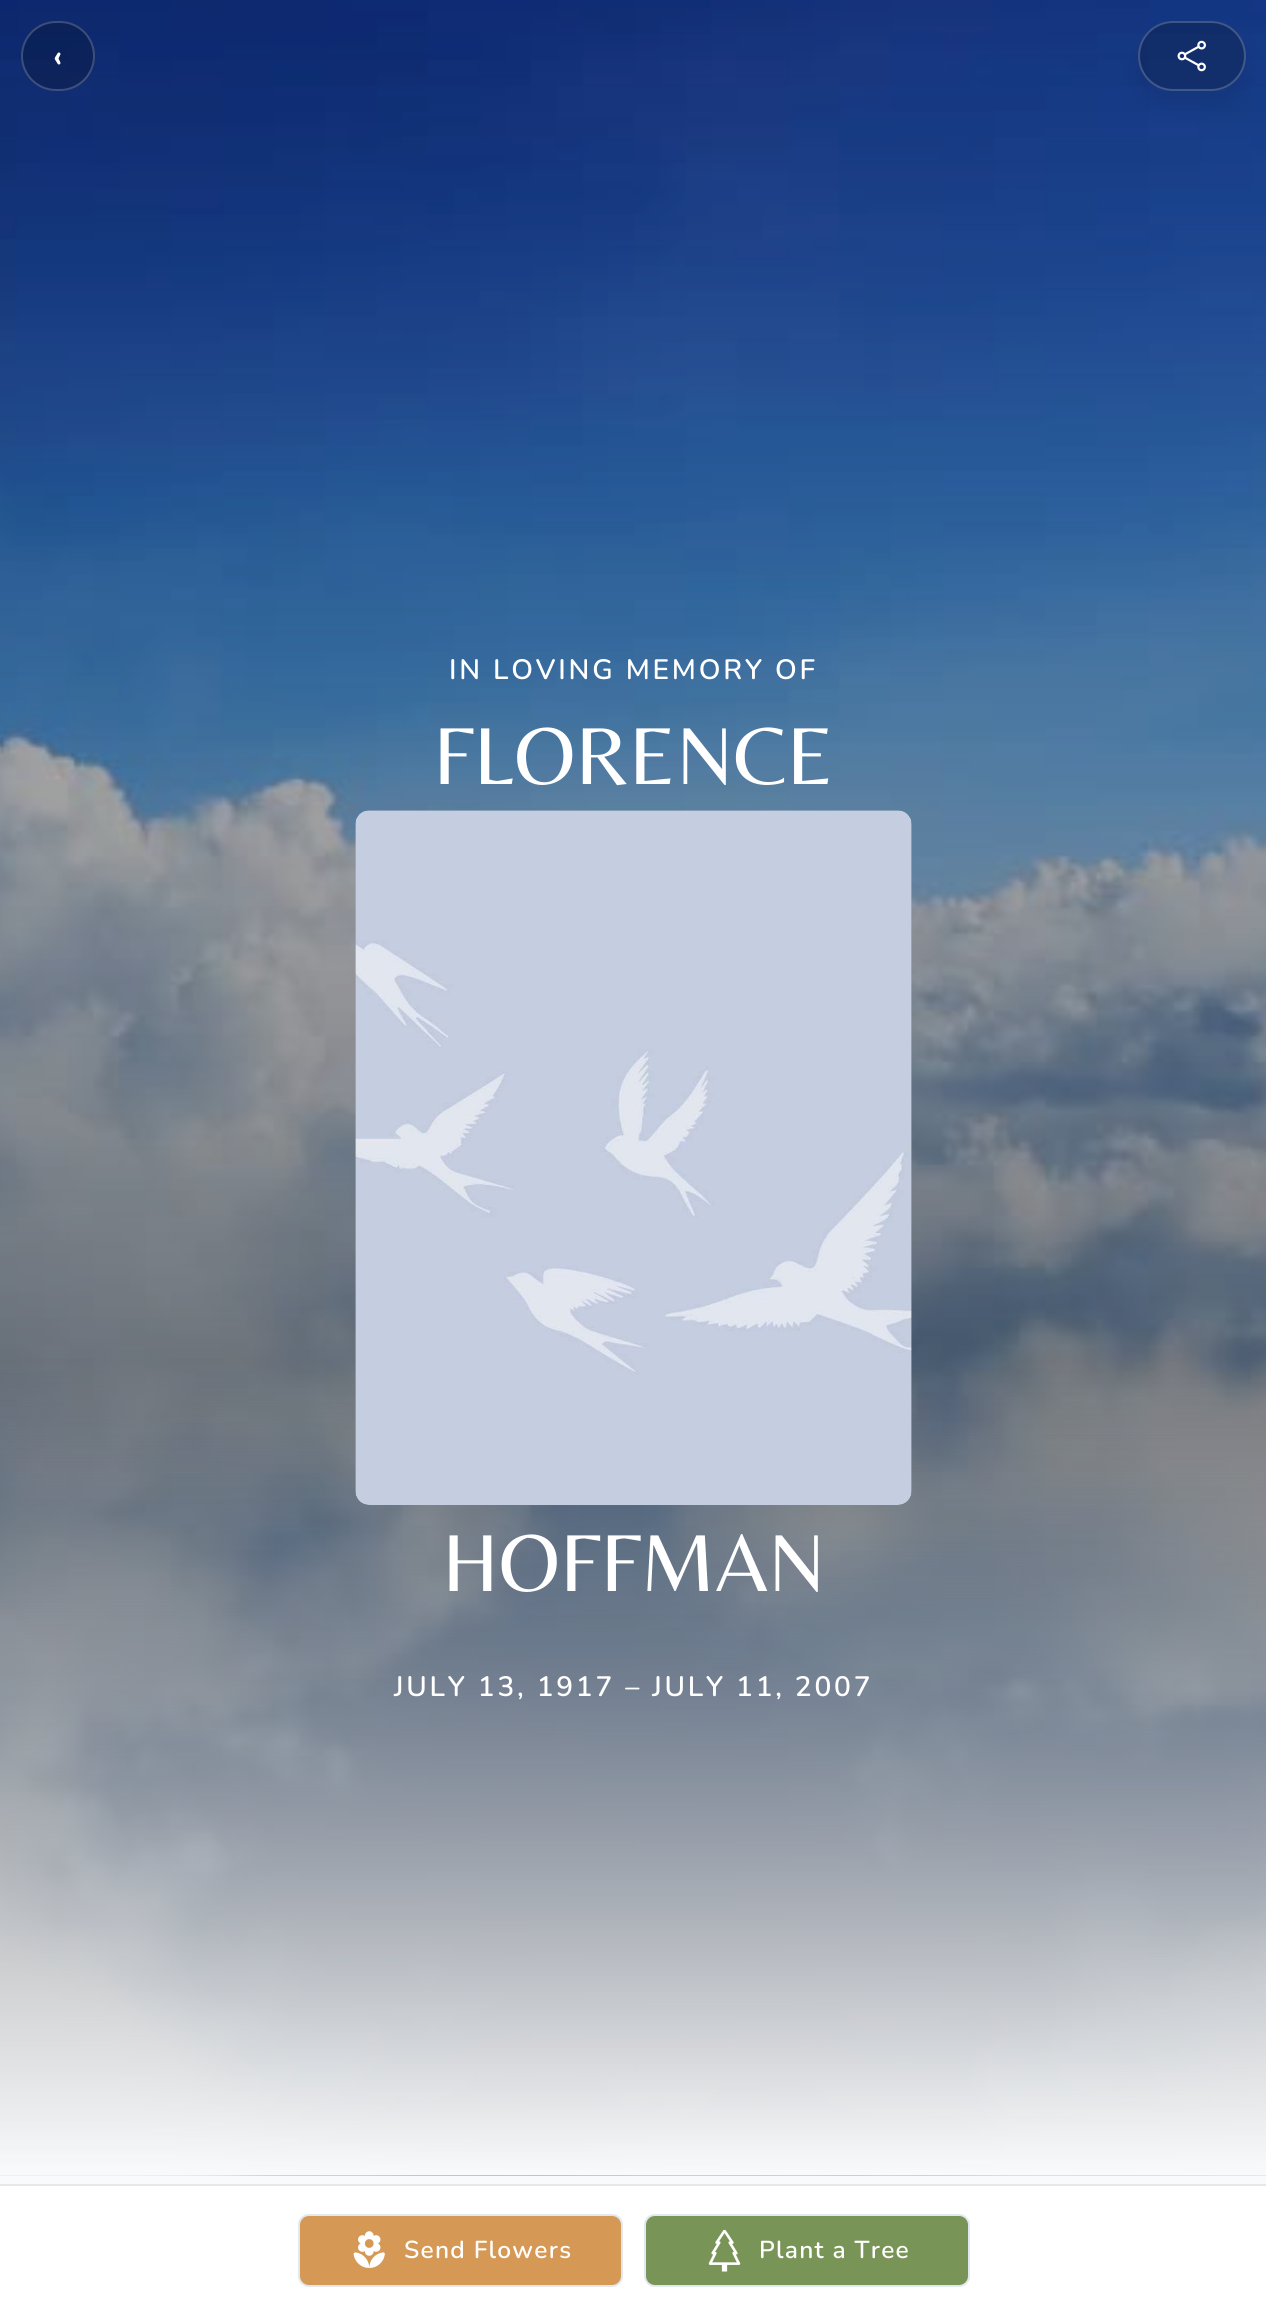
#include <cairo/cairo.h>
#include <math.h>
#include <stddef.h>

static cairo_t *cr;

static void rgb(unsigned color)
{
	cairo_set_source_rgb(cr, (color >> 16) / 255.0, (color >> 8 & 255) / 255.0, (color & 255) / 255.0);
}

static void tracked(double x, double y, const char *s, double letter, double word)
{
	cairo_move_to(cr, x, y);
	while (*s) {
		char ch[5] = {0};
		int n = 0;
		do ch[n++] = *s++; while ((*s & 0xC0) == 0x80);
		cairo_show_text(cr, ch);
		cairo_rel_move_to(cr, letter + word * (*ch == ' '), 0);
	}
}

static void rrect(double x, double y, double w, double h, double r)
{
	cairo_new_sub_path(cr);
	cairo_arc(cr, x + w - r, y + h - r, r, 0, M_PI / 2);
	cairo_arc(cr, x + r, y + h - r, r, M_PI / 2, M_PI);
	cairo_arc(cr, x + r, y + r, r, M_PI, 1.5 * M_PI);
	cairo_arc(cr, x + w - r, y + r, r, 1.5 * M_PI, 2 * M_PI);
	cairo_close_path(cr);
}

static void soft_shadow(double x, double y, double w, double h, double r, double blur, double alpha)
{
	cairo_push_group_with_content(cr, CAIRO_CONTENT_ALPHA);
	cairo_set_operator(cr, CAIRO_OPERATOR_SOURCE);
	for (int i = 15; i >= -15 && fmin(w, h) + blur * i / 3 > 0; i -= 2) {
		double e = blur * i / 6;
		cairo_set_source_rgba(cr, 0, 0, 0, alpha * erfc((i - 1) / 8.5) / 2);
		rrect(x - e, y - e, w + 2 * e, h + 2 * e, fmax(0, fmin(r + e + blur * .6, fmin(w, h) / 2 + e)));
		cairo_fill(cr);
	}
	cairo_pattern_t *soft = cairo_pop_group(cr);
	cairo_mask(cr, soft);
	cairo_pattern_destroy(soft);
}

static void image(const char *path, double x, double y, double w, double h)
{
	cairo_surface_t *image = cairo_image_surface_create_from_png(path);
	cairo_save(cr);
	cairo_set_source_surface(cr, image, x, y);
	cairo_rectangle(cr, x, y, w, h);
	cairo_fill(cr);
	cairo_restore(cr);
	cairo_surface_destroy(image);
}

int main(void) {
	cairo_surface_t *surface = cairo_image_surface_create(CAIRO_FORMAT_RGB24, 1266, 2315);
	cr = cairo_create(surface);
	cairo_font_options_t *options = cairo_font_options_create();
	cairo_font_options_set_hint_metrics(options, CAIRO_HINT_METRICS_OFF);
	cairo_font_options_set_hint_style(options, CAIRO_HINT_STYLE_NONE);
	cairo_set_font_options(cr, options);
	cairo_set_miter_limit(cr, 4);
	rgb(0xf9fafb);
	cairo_paint(cr);
	image("img/1.png", 0, 0, 1266, 2176);
	cairo_set_source_rgba(cr, 0, 0, 0, 0.2);
	rrect(21, 21, 74, 70, 35);
	cairo_fill(cr);
	rrect(22, 22, 72, 68, 34);
	cairo_set_source_rgba(cr, 1, 1, 1, 0.2);
	cairo_stroke(cr);
	cairo_save(cr);
	cairo_set_fill_rule(cr, CAIRO_FILL_RULE_EVEN_ODD);
	cairo_new_path(cr);
	cairo_move_to(cr, 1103, 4);
	cairo_line_to(cr, 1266, 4);
	cairo_line_to(cr, 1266, 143);
	cairo_line_to(cr, 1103, 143);
	cairo_close_path(cr);
	cairo_move_to(cr, 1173, 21);
	cairo_line_to(cr, 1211, 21);
	cairo_curve_to(cr, 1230.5, 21, 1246, 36.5, 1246, 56);
	cairo_curve_to(cr, 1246, 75.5, 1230.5, 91, 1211, 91);
	cairo_line_to(cr, 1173, 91);
	cairo_curve_to(cr, 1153.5, 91, 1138, 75.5, 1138, 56);
	cairo_curve_to(cr, 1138, 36.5, 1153.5, 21, 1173, 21);
	cairo_close_path(cr);
	cairo_clip(cr);
	rgb(0x000000);
	soft_shadow(1143, 44, 98, 59, 29.5, 13, 0.1);
	cairo_restore(cr);
	cairo_set_source_rgba(cr, 0, 0, 0, 0.2);
	rrect(1138, 21, 108, 70, 35);
	cairo_fill(cr);
	rrect(1139, 22, 106, 68, 34);
	cairo_set_source_rgba(cr, 1, 1, 1, 0.2);
	cairo_stroke(cr);
	image("img/2.png", 1177, 40, 29, 32);
	cairo_save(cr);
	rrect(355, 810, 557, 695, 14);
	cairo_clip(cr);
	rgb(0x000000);
	soft_shadow(355, 812, 557, 695, 14, 2.5, 0.1);
	cairo_restore(cr);
	image("img/3.png", 355, 810, 557, 695);
	rgb(0xffffff);
	cairo_rectangle(cr, 0, 2186, 1266, 129);
	cairo_fill(cr);
	rgb(0xe5e7eb);
	cairo_rectangle(cr, 0, 2184, 1266, 2);
	cairo_fill(cr);
	rgb(0xd59955);
	rrect(299, 2215, 323, 71, 10);
	cairo_fill_preserve(cr);
	rgb(0xe2e8f0);
	cairo_stroke(cr);
	image("img/4.png", 353, 2231, 32, 37);
	rgb(0x799457);
	rrect(645, 2215, 324, 71, 10);
	cairo_fill_preserve(cr);
	rgb(0xe2e8f0);
	cairo_stroke(cr);
	image("img/5.png", 708, 2230, 33, 42);
	cairo_select_font_face(cr, "Nunito", CAIRO_FONT_SLANT_NORMAL, CAIRO_FONT_WEIGHT_BOLD);
	cairo_set_font_size(cr, 32);
	rgb(0xffffff);
	tracked(53, 67, "‹", 1.25, 0);
	cairo_select_font_face(cr, "Nunito SemiBold", CAIRO_FONT_SLANT_NORMAL, CAIRO_FONT_WEIGHT_NORMAL);
	cairo_set_font_size(cr, 28);
	tracked(449, 679, "IN LOVING MEMORY OF", 2.8, 0);
	cairo_select_font_face(cr, "Belleza", CAIRO_FONT_SLANT_NORMAL, CAIRO_FONT_WEIGHT_NORMAL);
	cairo_set_font_size(cr, 84);
	cairo_move_to(cr, 433, 784);
	cairo_show_text(cr, "FLORENCE");
	cairo_move_to(cr, 442, 1591);
	cairo_show_text(cr, "HOFFMAN");
	cairo_select_font_face(cr, "Nunito SemiBold", CAIRO_FONT_SLANT_NORMAL, CAIRO_FONT_WEIGHT_NORMAL);
	cairo_set_font_size(cr, 28);
	tracked(394, 1696, "JULY 13, 1917 – JULY 11, 2007", 2.8, 0);
	cairo_set_font_size(cr, 24.5);
	tracked(404, 2258, "Send Flowers", 1.25, 0);
	tracked(759, 2258, "Plant a Tree", 1.25, 0);
	cairo_surface_write_to_png(surface, "page.png");
	cairo_font_options_destroy(options);
	cairo_destroy(cr);
	cairo_surface_destroy(surface);
	return 0;
}
